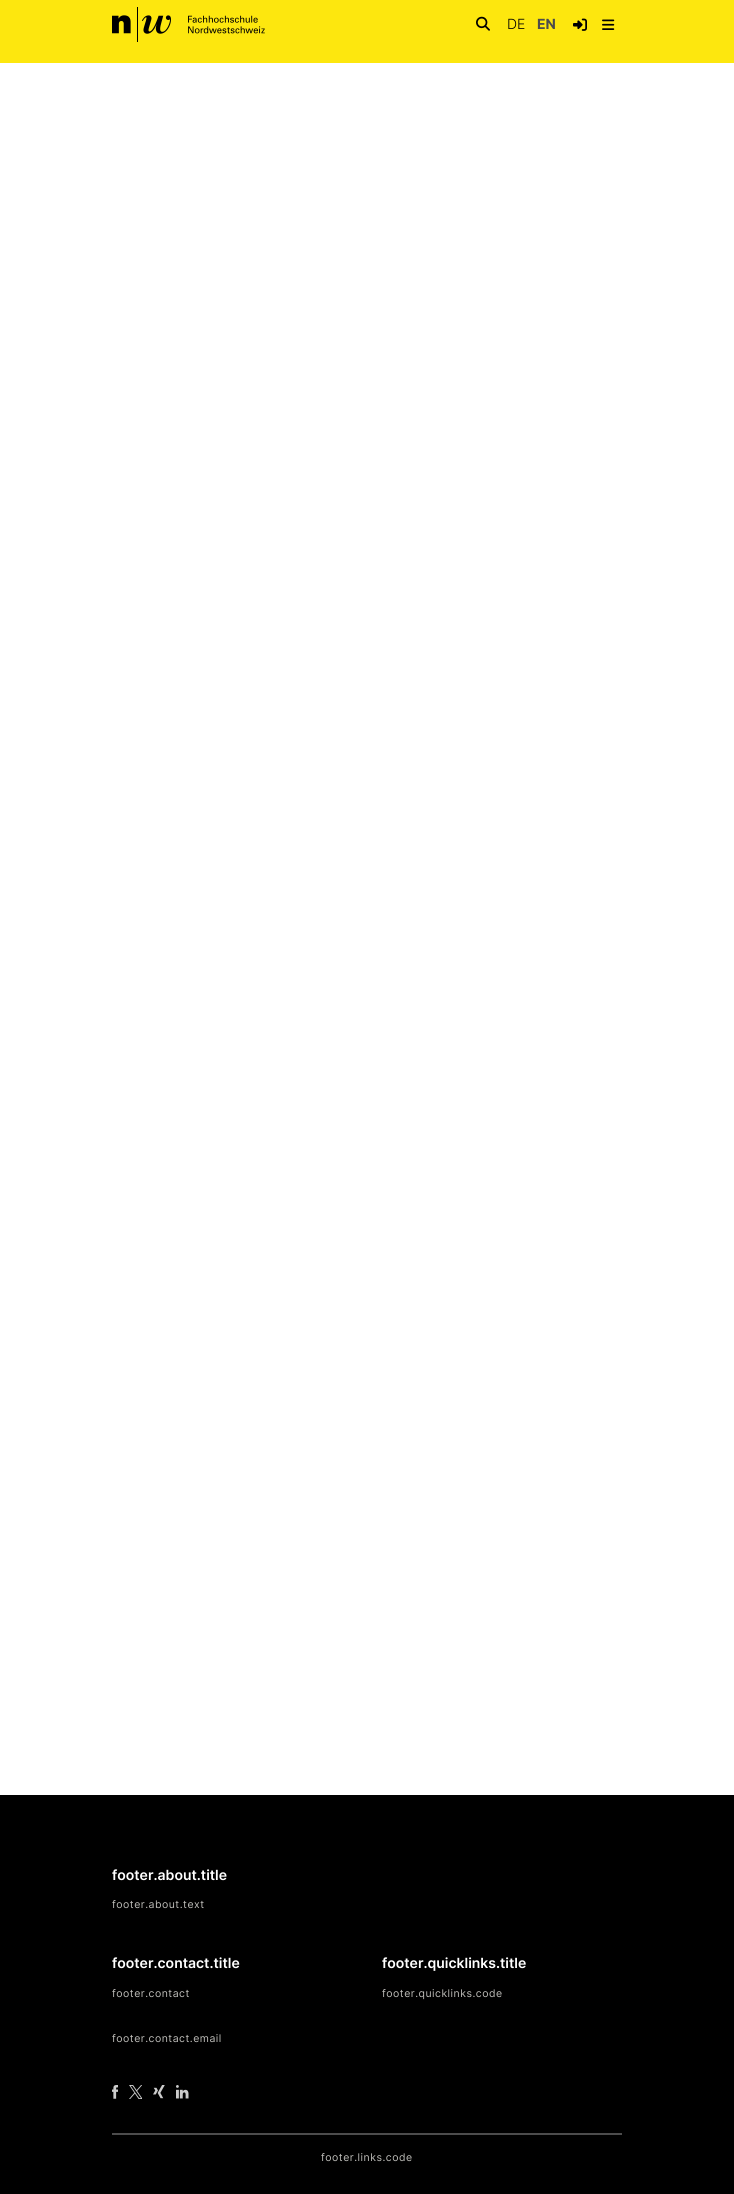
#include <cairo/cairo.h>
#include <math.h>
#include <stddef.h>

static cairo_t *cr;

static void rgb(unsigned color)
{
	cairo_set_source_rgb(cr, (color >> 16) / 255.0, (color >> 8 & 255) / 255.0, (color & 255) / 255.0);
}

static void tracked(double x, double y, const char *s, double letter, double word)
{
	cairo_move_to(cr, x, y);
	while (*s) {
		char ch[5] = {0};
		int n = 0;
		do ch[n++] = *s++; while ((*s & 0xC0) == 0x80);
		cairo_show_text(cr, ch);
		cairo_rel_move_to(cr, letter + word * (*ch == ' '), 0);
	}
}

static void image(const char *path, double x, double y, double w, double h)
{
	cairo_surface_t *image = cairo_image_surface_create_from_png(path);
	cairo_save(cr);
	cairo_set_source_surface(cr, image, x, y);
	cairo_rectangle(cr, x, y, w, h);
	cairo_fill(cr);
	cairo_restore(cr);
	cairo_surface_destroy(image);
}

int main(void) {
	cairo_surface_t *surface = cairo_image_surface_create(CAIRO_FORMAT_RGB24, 734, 2194);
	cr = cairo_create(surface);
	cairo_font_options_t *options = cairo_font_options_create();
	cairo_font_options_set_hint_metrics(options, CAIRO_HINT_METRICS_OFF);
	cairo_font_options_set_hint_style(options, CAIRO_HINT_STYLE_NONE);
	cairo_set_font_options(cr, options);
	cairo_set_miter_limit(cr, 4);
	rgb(0xffffff);
	cairo_paint(cr);
	rgb(0xfde70e);
	cairo_rectangle(cr, 0, 0, 734, 63);
	cairo_fill(cr);
	image("img/1.png", 112, 7, 153, 35);
	image("img/2.png", 476, 16, 14, 15);
	image("img/3.png", 573, 18, 14, 13);
	image("img/4.png", 602, 19, 13, 11);
	rgb(0x000000);
	cairo_rectangle(cr, 0, 1795, 734, 399);
	cairo_fill(cr);
	image("img/5.png", 112, 2085, 6, 14);
	image("img/6.png", 129, 2085, 13, 14);
	image("img/7.png", 153, 2085, 12, 14);
	image("img/8.png", 176, 2085, 13, 14);
	rgb(0x4c4c4c);
	cairo_rectangle(cr, 112, 2133, 510, 2);
	cairo_fill(cr);
	cairo_select_font_face(cr, "Inter Light", CAIRO_FONT_SLANT_NORMAL, CAIRO_FONT_WEIGHT_NORMAL);
	cairo_set_font_size(cr, 14);
	rgb(0x000000);
	cairo_move_to(cr, 507, 29);
	cairo_show_text(cr, "DE");
	cairo_select_font_face(cr, "Inter", CAIRO_FONT_SLANT_NORMAL, CAIRO_FONT_WEIGHT_BOLD);
	rgb(0x4c4c4c);
	cairo_move_to(cr, 537, 29);
	cairo_show_text(cr, "EN");
	cairo_select_font_face(cr, "Inter SemiBold", CAIRO_FONT_SLANT_NORMAL, CAIRO_FONT_WEIGHT_NORMAL);
	rgb(0xffffff);
	cairo_move_to(cr, 112, 1880);
	cairo_show_text(cr, "footer.about.title");
	cairo_select_font_face(cr, "Inter", CAIRO_FONT_SLANT_NORMAL, CAIRO_FONT_WEIGHT_NORMAL);
	cairo_set_font_size(cr, 10.5);
	rgb(0xbebdb9);
	tracked(112, 1908, "footer.about.text", 0.5, 0);
	cairo_select_font_face(cr, "Inter SemiBold", CAIRO_FONT_SLANT_NORMAL, CAIRO_FONT_WEIGHT_NORMAL);
	cairo_set_font_size(cr, 14);
	rgb(0xffffff);
	cairo_move_to(cr, 112, 1968);
	cairo_show_text(cr, "footer.contact.title");
	cairo_select_font_face(cr, "Inter", CAIRO_FONT_SLANT_NORMAL, CAIRO_FONT_WEIGHT_NORMAL);
	cairo_set_font_size(cr, 10.5);
	rgb(0xbebdb9);
	tracked(112, 1997, "footer.contact", 0.5, 0);
	tracked(112, 2042, "footer.contact.email", 0.5, 0);
	cairo_select_font_face(cr, "Inter SemiBold", CAIRO_FONT_SLANT_NORMAL, CAIRO_FONT_WEIGHT_NORMAL);
	cairo_set_font_size(cr, 14);
	rgb(0xffffff);
	cairo_move_to(cr, 382, 1968);
	cairo_show_text(cr, "footer.quicklinks.title");
	cairo_select_font_face(cr, "Inter", CAIRO_FONT_SLANT_NORMAL, CAIRO_FONT_WEIGHT_NORMAL);
	cairo_set_font_size(cr, 10.5);
	rgb(0xbebdb9);
	tracked(382, 1997, "footer.quicklinks.code", 0.5, 0);
	tracked(321, 2161, "footer.links.code", 0.5, 0);
	cairo_surface_write_to_png(surface, "page.png");
	cairo_font_options_destroy(options);
	cairo_destroy(cr);
	cairo_surface_destroy(surface);
	return 0;
}
